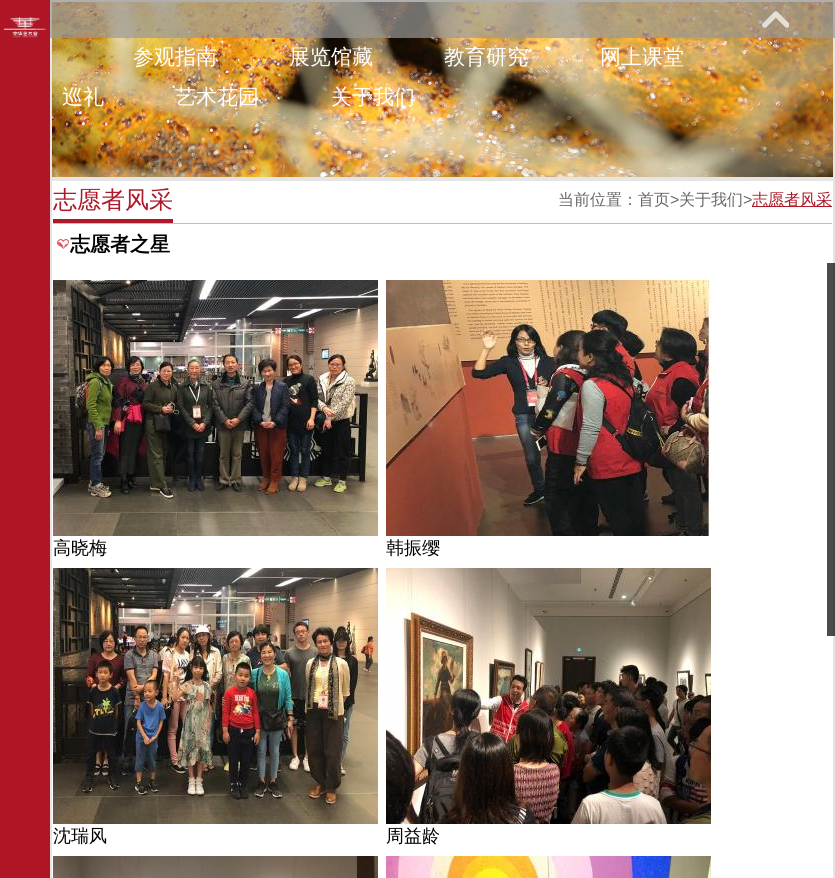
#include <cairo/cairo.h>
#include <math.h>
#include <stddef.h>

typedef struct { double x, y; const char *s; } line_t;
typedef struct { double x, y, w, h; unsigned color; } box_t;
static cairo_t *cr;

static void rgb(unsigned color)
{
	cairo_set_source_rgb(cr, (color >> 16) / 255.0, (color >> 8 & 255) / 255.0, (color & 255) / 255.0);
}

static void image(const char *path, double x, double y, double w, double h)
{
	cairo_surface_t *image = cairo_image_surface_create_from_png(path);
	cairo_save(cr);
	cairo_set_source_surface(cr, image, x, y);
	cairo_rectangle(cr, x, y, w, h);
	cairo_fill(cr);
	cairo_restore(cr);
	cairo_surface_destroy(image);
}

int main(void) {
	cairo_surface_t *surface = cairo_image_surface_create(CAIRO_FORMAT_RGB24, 835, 878);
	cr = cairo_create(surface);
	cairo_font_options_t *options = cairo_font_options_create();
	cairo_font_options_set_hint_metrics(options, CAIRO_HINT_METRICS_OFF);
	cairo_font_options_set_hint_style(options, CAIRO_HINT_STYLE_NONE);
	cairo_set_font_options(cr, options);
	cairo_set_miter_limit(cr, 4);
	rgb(0xffffff);
	cairo_paint(cr);
	rgb(0xae1625);
	cairo_rectangle(cr, 0, 0, 50, 878);
	cairo_fill(cr);
	image("img/1.png", 4, 16, 42, 22);
	cairo_rectangle(cr, 51, 1, 783, 177);
	rgb(0xe5e5e5);
	cairo_stroke(cr);
	image("img/3.png", 52, 2, 781, 175);
	cairo_set_source_rgba(cr, 0.6, 0.6, 0.6, 0.7);
	cairo_rectangle(cr, 50, 0, 785, 38);
	cairo_fill(cr);
	image("img/2.png", 762, 11, 27, 17);
	cairo_rectangle(cr, 51, 180, 783, 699);
	rgb(0xe5e5e5);
	cairo_stroke(cr);
	{
		static const box_t items[] = {
			{53, 223, 779, 1, 0xbfbfbf},
			{53, 219, 120, 4, 0xac1929},
			{752, 206, 80, 1, 0xac1929},
		};
		for (size_t i = 0; i < sizeof items / sizeof *items; i++) {
			rgb(items[i].color);
			cairo_rectangle(cr, items[i].x, items[i].y, items[i].w, items[i].h);
			cairo_fill(cr);
		}
	}
	image("img/4.png", 57, 239, 12, 10);
	image("img/5.png", 53, 280, 325, 256);
	image("img/6.png", 386, 280, 325, 256);
	image("img/7.png", 53, 568, 325, 256);
	image("img/8.png", 386, 568, 325, 256);
	image("img/9.png", 53, 856, 325, 22);
	image("img/10.png", 386, 856, 325, 22);
	cairo_set_source_rgba(cr, 0, 0, 0, 0.7);
	cairo_rectangle(cr, 827, 263, 8, 373);
	cairo_fill(cr);
	cairo_select_font_face(cr, "WenQuanYi Zen Hei Medium", CAIRO_FONT_SLANT_NORMAL, CAIRO_FONT_WEIGHT_NORMAL);
	cairo_set_font_size(cr, 21);
	rgb(0xffffff);
	{
		static const line_t items[] = {
			{133, 64, "参观指南"},
			{289, 64, "展览馆藏"},
			{444, 64, "教育研究"},
			{600, 64, "网上课堂"},
			{62, 104, "巡礼"},
			{175, 104, "艺术花园"},
			{331, 104, "关于我们"},
		};
		for (size_t i = 0; i < sizeof items / sizeof *items; i++) {
			cairo_move_to(cr, items[i].x, items[i].y);
			cairo_show_text(cr, items[i].s);
		}
	}
	cairo_set_font_size(cr, 24);
	rgb(0xac1929);
	cairo_move_to(cr, 53, 208);
	cairo_show_text(cr, "志愿者风采");
	cairo_set_font_size(cr, 16);
	rgb(0x666666);
	cairo_move_to(cr, 558, 205);
	cairo_show_text(cr, "当前位置：首页");
	cairo_select_font_face(cr, "Liberation Sans", CAIRO_FONT_SLANT_NORMAL, CAIRO_FONT_WEIGHT_NORMAL);
	cairo_move_to(cr, 670, 205);
	cairo_show_text(cr, ">");
	cairo_select_font_face(cr, "WenQuanYi Zen Hei Medium", CAIRO_FONT_SLANT_NORMAL, CAIRO_FONT_WEIGHT_NORMAL);
	cairo_move_to(cr, 679, 205);
	cairo_show_text(cr, "关于我们");
	cairo_select_font_face(cr, "Liberation Sans", CAIRO_FONT_SLANT_NORMAL, CAIRO_FONT_WEIGHT_NORMAL);
	cairo_move_to(cr, 743, 205);
	cairo_show_text(cr, ">");
	cairo_select_font_face(cr, "WenQuanYi Zen Hei Medium", CAIRO_FONT_SLANT_NORMAL, CAIRO_FONT_WEIGHT_NORMAL);
	rgb(0xac1929);
	cairo_move_to(cr, 752, 205);
	cairo_show_text(cr, "志愿者风采");
	cairo_select_font_face(cr, "WenQuanYi Zen Hei", CAIRO_FONT_SLANT_NORMAL, CAIRO_FONT_WEIGHT_BOLD);
	cairo_set_font_size(cr, 20);
	rgb(0x000000);
	cairo_move_to(cr, 70, 251);
	cairo_show_text(cr, "志愿者之星");
	cairo_select_font_face(cr, "WenQuanYi Zen Hei Medium", CAIRO_FONT_SLANT_NORMAL, CAIRO_FONT_WEIGHT_NORMAL);
	cairo_set_font_size(cr, 18);
	{
		static const line_t items[] = {
			{53, 554, "高晓梅"},
			{386, 554, "韩振缨"},
			{53, 842, "沈瑞风"},
			{386, 842, "周益龄"},
		};
		for (size_t i = 0; i < sizeof items / sizeof *items; i++) {
			cairo_move_to(cr, items[i].x, items[i].y);
			cairo_show_text(cr, items[i].s);
		}
	}
	cairo_surface_write_to_png(surface, "page.png");
	cairo_font_options_destroy(options);
	cairo_destroy(cr);
	cairo_surface_destroy(surface);
	return 0;
}
